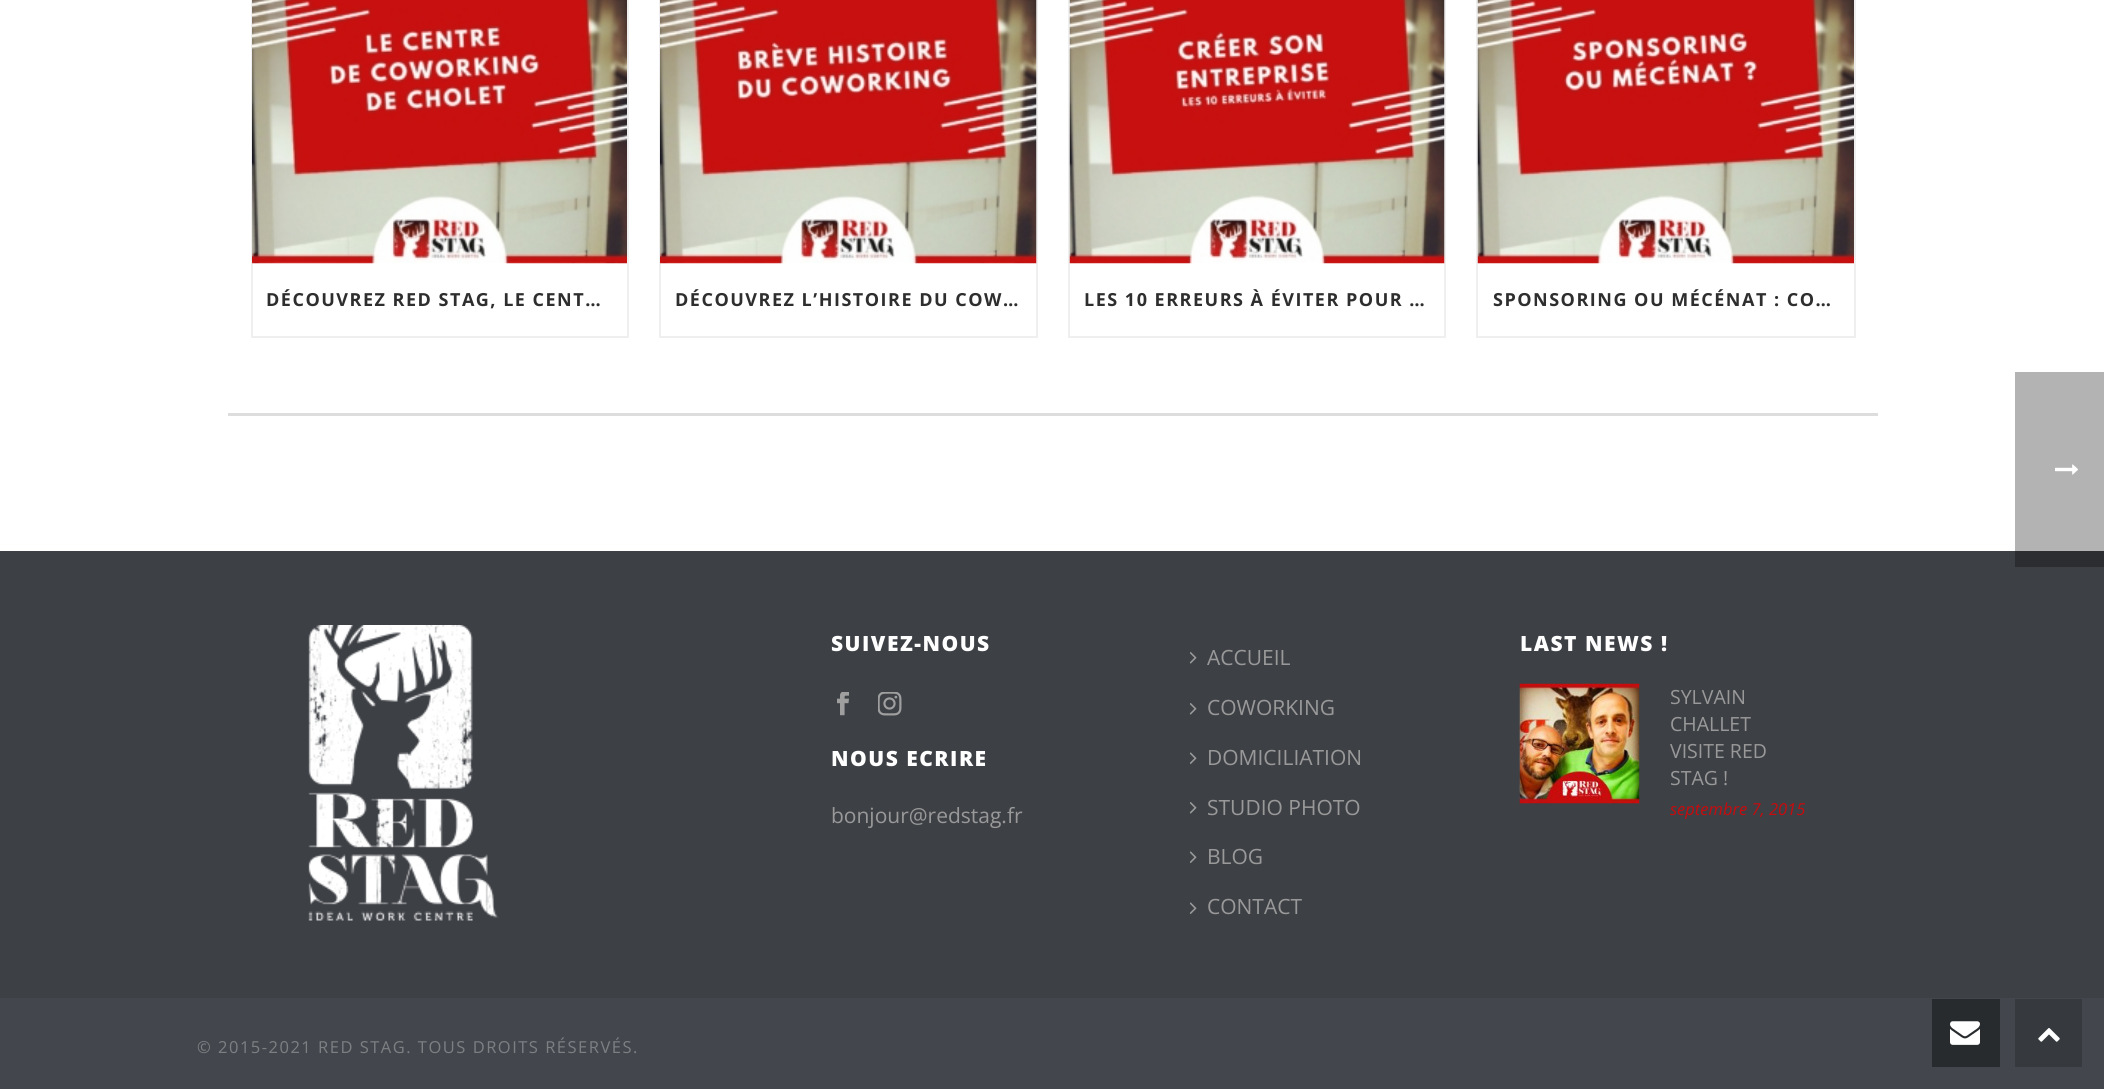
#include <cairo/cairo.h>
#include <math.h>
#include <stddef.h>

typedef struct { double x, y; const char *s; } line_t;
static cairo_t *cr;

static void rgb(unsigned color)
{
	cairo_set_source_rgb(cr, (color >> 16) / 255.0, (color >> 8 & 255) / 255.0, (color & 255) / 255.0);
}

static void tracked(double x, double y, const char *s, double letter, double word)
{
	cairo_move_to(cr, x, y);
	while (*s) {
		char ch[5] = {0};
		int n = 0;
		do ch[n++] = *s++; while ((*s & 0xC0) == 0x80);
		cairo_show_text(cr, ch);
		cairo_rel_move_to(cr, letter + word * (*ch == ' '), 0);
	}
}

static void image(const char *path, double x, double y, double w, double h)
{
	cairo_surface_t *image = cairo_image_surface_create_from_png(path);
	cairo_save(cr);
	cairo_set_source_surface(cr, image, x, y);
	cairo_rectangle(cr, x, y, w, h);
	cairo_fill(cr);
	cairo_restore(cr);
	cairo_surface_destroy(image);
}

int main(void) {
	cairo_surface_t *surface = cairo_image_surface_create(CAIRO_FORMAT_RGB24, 2104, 1089);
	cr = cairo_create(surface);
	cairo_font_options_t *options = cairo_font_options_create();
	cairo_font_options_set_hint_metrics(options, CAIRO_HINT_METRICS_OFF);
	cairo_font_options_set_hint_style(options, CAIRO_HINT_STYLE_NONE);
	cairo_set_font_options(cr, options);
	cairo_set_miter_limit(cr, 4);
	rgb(0xffffff);
	cairo_paint(cr);
	rgb(0xb3b3b3);
	cairo_rectangle(cr, 2015, 372, 89, 179);
	cairo_fill(cr);
	rgb(0xdddddd);
	cairo_rectangle(cr, 228, 413, 1650, 3);
	cairo_fill(cr);
	cairo_rectangle(cr, 252, -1, 376, 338);
	rgb(0xefefef);
	cairo_stroke(cr);
	image("img/1.png", 252, 0, 375, 264);
	cairo_rectangle(cr, 660, -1, 377, 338);
	cairo_stroke(cr);
	image("img/2.png", 660, 0, 377, 264);
	cairo_rectangle(cr, 1069, -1, 376, 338);
	cairo_stroke(cr);
	image("img/3.png", 1069, 0, 376, 264);
	cairo_rectangle(cr, 1477, -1, 378, 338);
	cairo_stroke(cr);
	image("img/4.png", 1477, 0, 377, 264);
	rgb(0x3d4045);
	cairo_rectangle(cr, 0, 551, 2104, 447);
	cairo_fill(cr);
	rgb(0x2b2d30);
	cairo_rectangle(cr, 2015, 551, 89, 16);
	cairo_fill(cr);
	image("img/5.png", 308, 625, 191, 296);
	image("img/6.png", 837, 692, 12, 24);
	image("img/7.png", 878, 692, 24, 24);
	image("img/8.png", 1190, 652, 7, 12);
	image("img/8.png", 1190, 703, 7, 12);
	image("img/9.png", 1190, 752, 7, 12);
	image("img/8.png", 1190, 802, 7, 12);
	image("img/9.png", 1190, 851, 7, 12);
	image("img/9.png", 1190, 902, 7, 12);
	image("img/10.png", 1519, 683, 121, 121);
	rgb(0x43474d);
	cairo_rectangle(cr, 0, 998, 2104, 91);
	cairo_fill(cr);
	image("img/11.png", 2055, 464, 23, 11);
	rgb(0x282b2e);
	cairo_rectangle(cr, 1932, 999, 68, 68);
	cairo_fill(cr);
	image("img/12.png", 1950, 1021, 30, 24);
	rgb(0x36393e);
	cairo_rectangle(cr, 2015, 999, 67, 68);
	cairo_fill(cr);
	image("img/13.png", 2038, 1028, 22, 14);
	cairo_select_font_face(cr, "Open Sans", CAIRO_FONT_SLANT_NORMAL, CAIRO_FONT_WEIGHT_BOLD);
	cairo_set_font_size(cr, 18);
	rgb(0x2e2e2e);
	{
		static const line_t items[] = {
			{266, 306, "DÉCOUVREZ RED STAG, LE CENT…"},
			{675, 306, "DÉCOUVREZ L’HISTOIRE DU COW…"},
			{1084, 306, "LES 10 ERREURS À ÉVITER POUR …"},
			{1493, 306, "SPONSORING OU MÉCÉNAT : CO…"},
		};
		for (size_t i = 0; i < sizeof items / sizeof *items; i++) {
			tracked(items[i].x, items[i].y, items[i].s, 1.5, 0);
		}
	}
	cairo_select_font_face(cr, "Open Sans ExtraBold", CAIRO_FONT_SLANT_NORMAL, CAIRO_FONT_WEIGHT_NORMAL);
	cairo_set_font_size(cr, 21);
	rgb(0xffffff);
	tracked(831, 651, "SUIVEZ-NOUS", 1.5, 0);
	tracked(831, 766, "NOUS ECRIRE", 1.5, 0);
	cairo_select_font_face(cr, "Open Sans", CAIRO_FONT_SLANT_NORMAL, CAIRO_FONT_WEIGHT_NORMAL);
	rgb(0x999999);
	{
		static const line_t items[] = {
			{831, 823, "bonjour@redstag.fr"},
			{1207, 665, "ACCUEIL"},
			{1207, 715, "COWORKING"},
			{1207, 765, "DOMICILIATION"},
			{1207, 815, "STUDIO PHOTO"},
			{1207, 864, "BLOG"},
			{1207, 914, "CONTACT"},
		};
		for (size_t i = 0; i < sizeof items / sizeof *items; i++) {
			cairo_move_to(cr, items[i].x, items[i].y);
			cairo_show_text(cr, items[i].s);
		}
	}
	cairo_select_font_face(cr, "Open Sans ExtraBold", CAIRO_FONT_SLANT_NORMAL, CAIRO_FONT_WEIGHT_NORMAL);
	rgb(0xffffff);
	tracked(1520, 651, "LAST NEWS !", 1.5, 0);
	cairo_select_font_face(cr, "Open Sans", CAIRO_FONT_SLANT_NORMAL, CAIRO_FONT_WEIGHT_NORMAL);
	cairo_set_font_size(cr, 19.5);
	rgb(0x999999);
	{
		static const line_t items[] = {
			{1670, 704, "SYLVAIN"},
			{1670, 731, "CHALLET"},
			{1670, 758, "VISITE RED"},
			{1670, 785, "STAG !"},
		};
		for (size_t i = 0; i < sizeof items / sizeof *items; i++) {
			cairo_move_to(cr, items[i].x, items[i].y);
			cairo_show_text(cr, items[i].s);
		}
	}
	cairo_select_font_face(cr, "Open Sans", CAIRO_FONT_SLANT_ITALIC, CAIRO_FONT_WEIGHT_NORMAL);
	cairo_set_font_size(cr, 16.5);
	rgb(0xc80b0e);
	cairo_move_to(cr, 1670, 815);
	cairo_show_text(cr, "septembre 7, 2015");
	cairo_select_font_face(cr, "Open Sans", CAIRO_FONT_SLANT_NORMAL, CAIRO_FONT_WEIGHT_NORMAL);
	rgb(0x7d8083);
	tracked(197, 1053, "© 2015-2021 RED STAG. TOUS DROITS RÉSERVÉS.", 1.5, 0);
	cairo_surface_write_to_png(surface, "page.png");
	cairo_font_options_destroy(options);
	cairo_destroy(cr);
	cairo_surface_destroy(surface);
	return 0;
}
